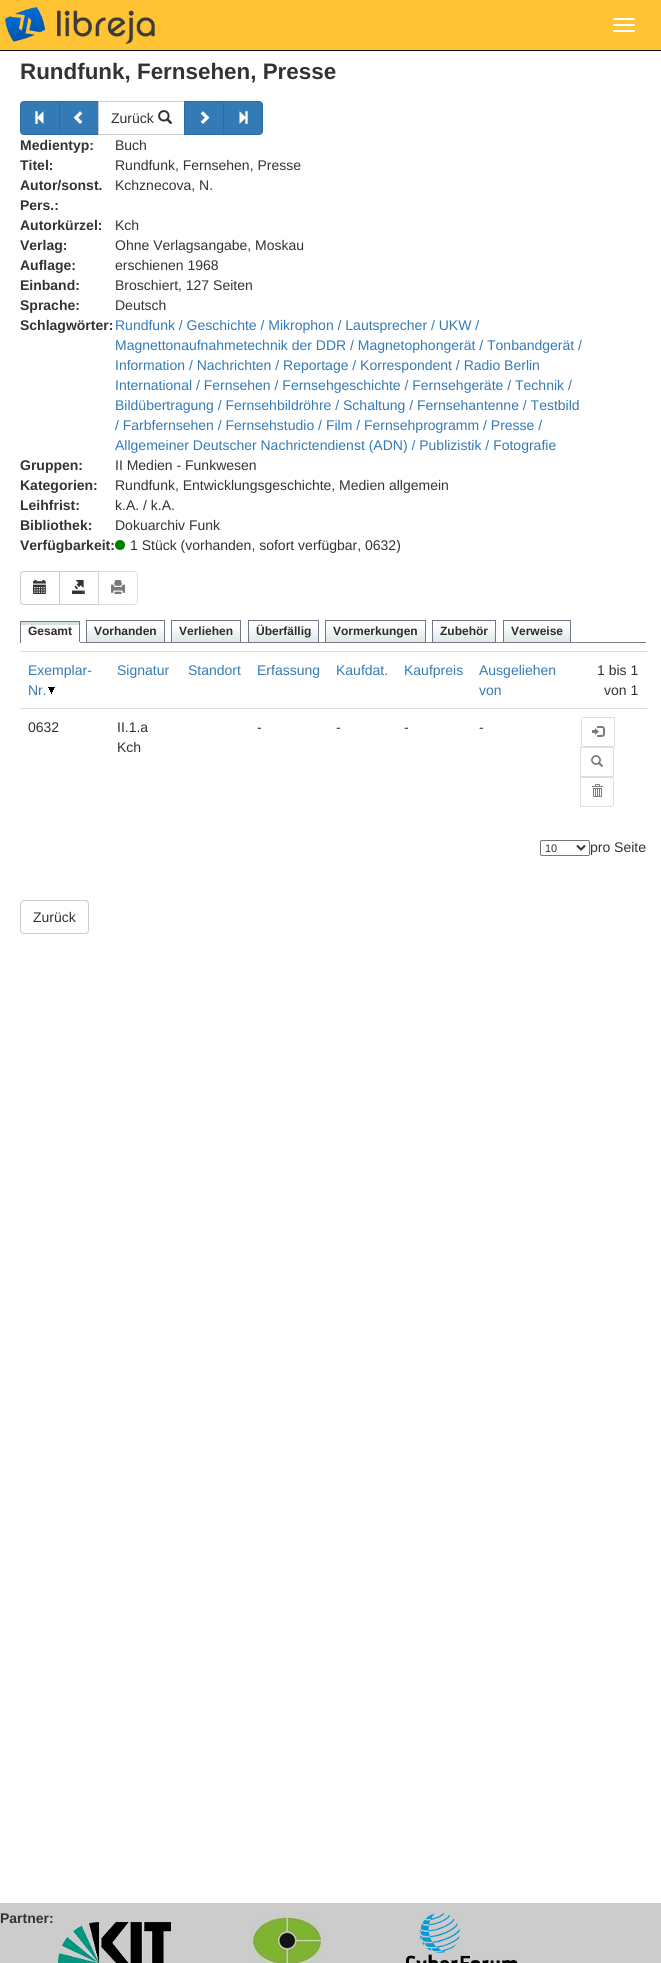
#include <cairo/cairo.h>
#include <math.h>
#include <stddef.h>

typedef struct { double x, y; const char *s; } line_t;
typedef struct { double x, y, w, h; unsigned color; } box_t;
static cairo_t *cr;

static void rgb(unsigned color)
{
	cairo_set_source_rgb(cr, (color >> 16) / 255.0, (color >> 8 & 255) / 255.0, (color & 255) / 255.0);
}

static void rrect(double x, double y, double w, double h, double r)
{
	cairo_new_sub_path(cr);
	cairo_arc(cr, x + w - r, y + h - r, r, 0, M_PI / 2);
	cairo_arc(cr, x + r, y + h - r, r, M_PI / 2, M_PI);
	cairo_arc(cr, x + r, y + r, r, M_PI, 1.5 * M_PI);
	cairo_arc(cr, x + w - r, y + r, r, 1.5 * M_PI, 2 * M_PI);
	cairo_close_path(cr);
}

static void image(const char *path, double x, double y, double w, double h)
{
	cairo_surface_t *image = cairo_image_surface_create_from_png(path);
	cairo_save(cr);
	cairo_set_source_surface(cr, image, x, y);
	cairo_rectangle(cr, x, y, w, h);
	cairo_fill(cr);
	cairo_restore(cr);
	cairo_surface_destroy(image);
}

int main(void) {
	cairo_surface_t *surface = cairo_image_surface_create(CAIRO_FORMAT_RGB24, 661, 1963);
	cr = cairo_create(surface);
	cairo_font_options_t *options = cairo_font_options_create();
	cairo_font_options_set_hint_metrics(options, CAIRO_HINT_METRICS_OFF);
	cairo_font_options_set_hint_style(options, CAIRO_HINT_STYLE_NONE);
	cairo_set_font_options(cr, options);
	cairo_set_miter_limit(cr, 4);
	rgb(0xcccccc);
	cairo_paint(cr);
	rgb(0x161616);
	cairo_rectangle(cr, 0, 50, 661, 1);
	cairo_fill(cr);
	rgb(0xffc334);
	cairo_rectangle(cr, 0, 0, 661, 50);
	cairo_fill(cr);
	rgb(0xffffff);
	rrect(613, 18, 22, 2, 1);
	cairo_fill(cr);
	rrect(613, 24, 22, 2, 1);
	cairo_fill(cr);
	rrect(613, 30, 22, 2, 1);
	cairo_fill(cr);
	image("img/1.png", 5, 7, 150, 37);
	cairo_rectangle(cr, 0, 51, 661, 1852);
	cairo_fill(cr);
	rgb(0x337ab7);
	cairo_new_path(cr);
	cairo_move_to(cr, 24, 101.5);
	cairo_line_to(cr, 59.5, 101.5);
	cairo_line_to(cr, 59.5, 134.5);
	cairo_line_to(cr, 24, 134.5);
	cairo_curve_to(cr, 22, 134.5, 20.5, 133, 20.5, 131);
	cairo_line_to(cr, 20.5, 105);
	cairo_curve_to(cr, 20.5, 103, 22, 101.5, 24, 101.5);
	cairo_close_path(cr);
	cairo_fill_preserve(cr);
	rgb(0x2e6da4);
	cairo_set_line_width(cr, 1);
	cairo_stroke(cr);
	image("img/2.png", 35, 111, 9, 13);
	rgb(0x337ab7);
	cairo_rectangle(cr, 59.5, 101.5, 39, 33);
	cairo_fill_preserve(cr);
	rgb(0x2e6da4);
	cairo_stroke(cr);
	image("img/3.png", 73, 111, 10, 13);
	cairo_rectangle(cr, 98.5, 101.5, 86, 33);
	rgb(0xcccccc);
	cairo_stroke(cr);
	image("img/4.png", 158, 110, 15, 14);
	rgb(0x337ab7);
	cairo_rectangle(cr, 184.5, 101.5, 39, 33);
	cairo_fill_preserve(cr);
	rgb(0x2e6da4);
	cairo_stroke(cr);
	image("img/5.png", 200, 111, 10, 13);
	rgb(0x337ab7);
	cairo_new_path(cr);
	cairo_move_to(cr, 223.5, 101.5);
	cairo_line_to(cr, 259, 101.5);
	cairo_curve_to(cr, 261, 101.5, 262.5, 103, 262.5, 105);
	cairo_line_to(cr, 262.5, 131);
	cairo_curve_to(cr, 262.5, 133, 261, 134.5, 259, 134.5);
	cairo_line_to(cr, 223.5, 134.5);
	cairo_close_path(cr);
	cairo_fill_preserve(cr);
	rgb(0x2e6da4);
	cairo_stroke(cr);
	image("img/6.png", 239, 111, 9, 13);
	rgb(0x008000);
	cairo_arc(cr, 120, 545, 5, 0, 2 * M_PI);
	cairo_fill(cr);
	cairo_new_path(cr);
	cairo_move_to(cr, 24, 571.5);
	cairo_line_to(cr, 59.5, 571.5);
	cairo_line_to(cr, 59.5, 604.5);
	cairo_line_to(cr, 24, 604.5);
	cairo_curve_to(cr, 22, 604.5, 20.5, 603, 20.5, 601);
	cairo_line_to(cr, 20.5, 575);
	cairo_curve_to(cr, 20.5, 573, 22, 571.5, 24, 571.5);
	cairo_close_path(cr);
	rgb(0xcccccc);
	cairo_stroke(cr);
	image("img/7.png", 33, 580, 13, 14);
	cairo_rectangle(cr, 59.5, 571.5, 39, 33);
	cairo_stroke(cr);
	image("img/8.png", 72, 580, 13, 14);
	cairo_set_source_rgba(cr, 1, 1, 1, 0.65);
	cairo_new_path(cr);
	cairo_move_to(cr, 98, 571);
	cairo_line_to(cr, 134, 571);
	cairo_curve_to(cr, 136, 571, 138, 573, 138, 575);
	cairo_line_to(cr, 138, 601);
	cairo_curve_to(cr, 138, 603, 136, 605, 134, 605);
	cairo_line_to(cr, 98, 605);
	cairo_close_path(cr);
	cairo_fill(cr);
	cairo_new_path(cr);
	cairo_move_to(cr, 98.5, 571.5);
	cairo_line_to(cr, 134, 571.5);
	cairo_curve_to(cr, 136, 571.5, 137.5, 573, 137.5, 575);
	cairo_line_to(cr, 137.5, 601);
	cairo_curve_to(cr, 137.5, 603, 136, 604.5, 134, 604.5);
	cairo_line_to(cr, 98.5, 604.5);
	cairo_close_path(cr);
	cairo_set_source_rgba(cr, 0.8, 0.8, 0.8, 0.65);
	cairo_stroke(cr);
	image("img/9.png", 111, 580, 14, 14);
	{
		static const box_t items[] = {
			{80, 642, 566, 1, 0x808080},
			{20, 622, 60, 3, 0xd3e3e2},
			{20, 621, 60, 1, 0x777788},
			{79, 621, 1, 22, 0x777788},
			{79, 642, 1, 1, 0xffffff},
			{20, 621, 1, 22, 0x777788},
		};
		for (size_t i = 0; i < sizeof items / sizeof *items; i++) {
			rgb(items[i].color);
			cairo_rectangle(cr, items[i].x, items[i].y, items[i].w, items[i].h);
			cairo_fill(cr);
		}
	}
	image("img/10.png", 87, 628, 77, 14);
	cairo_rectangle(cr, 86.5, 620.5, 78, 22);
	cairo_stroke(cr);
	image("img/11.png", 172, 628, 68, 14);
	cairo_rectangle(cr, 171.5, 620.5, 69, 22);
	cairo_stroke(cr);
	image("img/12.png", 249, 628, 69, 14);
	cairo_rectangle(cr, 248.5, 620.5, 70, 22);
	cairo_stroke(cr);
	image("img/13.png", 326, 628, 99, 14);
	cairo_rectangle(cr, 325.5, 620.5, 100, 22);
	cairo_stroke(cr);
	image("img/14.png", 433, 628, 62, 14);
	cairo_rectangle(cr, 432.5, 620.5, 63, 22);
	cairo_stroke(cr);
	image("img/15.png", 504, 628, 66, 14);
	cairo_rectangle(cr, 503.5, 620.5, 67, 22);
	cairo_stroke(cr);
	image("img/16.png", 48, 687, 7, 7);
	rgb(0xdddddd);
	cairo_rectangle(cr, 20, 651, 627, 1);
	cairo_fill(cr);
	cairo_rectangle(cr, 20, 708, 627, 1);
	cairo_fill(cr);
	cairo_new_path(cr);
	cairo_move_to(cr, 584, 717.5);
	cairo_line_to(cr, 614.5, 717.5);
	cairo_line_to(cr, 614.5, 746.5);
	cairo_line_to(cr, 584, 746.5);
	cairo_curve_to(cr, 582.5, 746.5, 581.5, 745.5, 581.5, 744);
	cairo_line_to(cr, 581.5, 720);
	cairo_curve_to(cr, 581.5, 718.5, 582.5, 717.5, 584, 717.5);
	cairo_close_path(cr);
	rgb(0xdedede);
	cairo_stroke(cr);
	image("img/17.png", 592, 726, 13, 11);
	cairo_rectangle(cr, 580.5, 747.5, 33, 29);
	cairo_stroke(cr);
	image("img/18.png", 591, 755, 12, 12);
	cairo_new_path(cr);
	cairo_move_to(cr, 580.5, 777.5);
	cairo_line_to(cr, 611, 777.5);
	cairo_curve_to(cr, 612.5, 777.5, 613.5, 778.5, 613.5, 780);
	cairo_line_to(cr, 613.5, 804);
	cairo_curve_to(cr, 613.5, 805.5, 612.5, 806.5, 611, 806.5);
	cairo_line_to(cr, 580.5, 806.5);
	cairo_close_path(cr);
	cairo_stroke(cr);
	image("img/19.png", 592, 784, 11, 13);
	rrect(540.5, 840.5, 49, 15, 1.5);
	rgb(0x767676);
	cairo_stroke(cr);
	cairo_new_path(cr);
	cairo_move_to(cr, 577, 845.5);
	cairo_line_to(cr, 581, 849.5);
	cairo_line_to(cr, 585, 845.5);
	rgb(0x333333);
	cairo_set_line_width(cr, 2);
	cairo_stroke(cr);
	rrect(20.5, 900.5, 68, 33, 3.5);
	rgb(0xcccccc);
	cairo_set_line_width(cr, 1);
	cairo_stroke(cr);
	image("img/20.png", 58, 1922, 113, 41);
	image("img/21.png", 250, 1915, 74, 48);
	image("img/22.png", 406, 1913, 112, 50);
	cairo_select_font_face(cr, "Liberation Sans", CAIRO_FONT_SLANT_NORMAL, CAIRO_FONT_WEIGHT_BOLD);
	cairo_set_font_size(cr, 22.4);
	rgb(0x333333);
	cairo_move_to(cr, 20, 79);
	cairo_show_text(cr, "Rundfunk, Fernsehen, Presse");
	cairo_select_font_face(cr, "Liberation Sans", CAIRO_FONT_SLANT_NORMAL, CAIRO_FONT_WEIGHT_NORMAL);
	cairo_set_font_size(cr, 14);
	cairo_move_to(cr, 111, 123);
	cairo_show_text(cr, "Zurück");
	cairo_select_font_face(cr, "Liberation Sans", CAIRO_FONT_SLANT_NORMAL, CAIRO_FONT_WEIGHT_BOLD);
	cairo_move_to(cr, 20, 150);
	cairo_show_text(cr, "Medientyp:");
	cairo_select_font_face(cr, "Liberation Sans", CAIRO_FONT_SLANT_NORMAL, CAIRO_FONT_WEIGHT_NORMAL);
	cairo_move_to(cr, 115, 150);
	cairo_show_text(cr, "Buch");
	cairo_select_font_face(cr, "Liberation Sans", CAIRO_FONT_SLANT_NORMAL, CAIRO_FONT_WEIGHT_BOLD);
	cairo_move_to(cr, 20, 170);
	cairo_show_text(cr, "Titel:");
	cairo_select_font_face(cr, "Liberation Sans", CAIRO_FONT_SLANT_NORMAL, CAIRO_FONT_WEIGHT_NORMAL);
	cairo_move_to(cr, 115, 170);
	cairo_show_text(cr, "Rundfunk, Fernsehen, Presse");
	cairo_select_font_face(cr, "Liberation Sans", CAIRO_FONT_SLANT_NORMAL, CAIRO_FONT_WEIGHT_BOLD);
	cairo_move_to(cr, 20, 190);
	cairo_show_text(cr, "Autor/sonst.");
	cairo_move_to(cr, 20, 210);
	cairo_show_text(cr, "Pers.:");
	cairo_select_font_face(cr, "Liberation Sans", CAIRO_FONT_SLANT_NORMAL, CAIRO_FONT_WEIGHT_NORMAL);
	cairo_move_to(cr, 115, 190);
	cairo_show_text(cr, "Kchznecova, N.");
	cairo_select_font_face(cr, "Liberation Sans", CAIRO_FONT_SLANT_NORMAL, CAIRO_FONT_WEIGHT_BOLD);
	cairo_move_to(cr, 20, 230);
	cairo_show_text(cr, "Autorkürzel:");
	cairo_select_font_face(cr, "Liberation Sans", CAIRO_FONT_SLANT_NORMAL, CAIRO_FONT_WEIGHT_NORMAL);
	cairo_move_to(cr, 115, 230);
	cairo_show_text(cr, "Kch");
	cairo_select_font_face(cr, "Liberation Sans", CAIRO_FONT_SLANT_NORMAL, CAIRO_FONT_WEIGHT_BOLD);
	cairo_move_to(cr, 20, 250);
	cairo_show_text(cr, "Verlag:");
	cairo_select_font_face(cr, "Liberation Sans", CAIRO_FONT_SLANT_NORMAL, CAIRO_FONT_WEIGHT_NORMAL);
	cairo_move_to(cr, 115, 250);
	cairo_show_text(cr, "Ohne Verlagsangabe, Moskau");
	cairo_select_font_face(cr, "Liberation Sans", CAIRO_FONT_SLANT_NORMAL, CAIRO_FONT_WEIGHT_BOLD);
	cairo_move_to(cr, 20, 270);
	cairo_show_text(cr, "Auflage:");
	cairo_select_font_face(cr, "Liberation Sans", CAIRO_FONT_SLANT_NORMAL, CAIRO_FONT_WEIGHT_NORMAL);
	cairo_move_to(cr, 115, 270);
	cairo_show_text(cr, "erschienen 1968");
	cairo_select_font_face(cr, "Liberation Sans", CAIRO_FONT_SLANT_NORMAL, CAIRO_FONT_WEIGHT_BOLD);
	cairo_move_to(cr, 20, 290);
	cairo_show_text(cr, "Einband:");
	cairo_select_font_face(cr, "Liberation Sans", CAIRO_FONT_SLANT_NORMAL, CAIRO_FONT_WEIGHT_NORMAL);
	cairo_move_to(cr, 115, 290);
	cairo_show_text(cr, "Broschiert, 127 Seiten");
	cairo_select_font_face(cr, "Liberation Sans", CAIRO_FONT_SLANT_NORMAL, CAIRO_FONT_WEIGHT_BOLD);
	cairo_move_to(cr, 20, 310);
	cairo_show_text(cr, "Sprache:");
	cairo_select_font_face(cr, "Liberation Sans", CAIRO_FONT_SLANT_NORMAL, CAIRO_FONT_WEIGHT_NORMAL);
	cairo_move_to(cr, 115, 310);
	cairo_show_text(cr, "Deutsch");
	cairo_select_font_face(cr, "Liberation Sans", CAIRO_FONT_SLANT_NORMAL, CAIRO_FONT_WEIGHT_BOLD);
	cairo_move_to(cr, 20, 330);
	cairo_show_text(cr, "Schlagwörter:");
	cairo_select_font_face(cr, "Liberation Sans", CAIRO_FONT_SLANT_NORMAL, CAIRO_FONT_WEIGHT_NORMAL);
	rgb(0x337ab7);
	{
		static const line_t items[] = {
			{115, 330, "Rundfunk / Geschichte / Mikrophon / Lautsprecher / UKW /"},
			{115, 350, "Magnettonaufnahmetechnik der DDR / Magnetophongerät / Tonbandgerät /"},
			{115, 370, "Information / Nachrichten / Reportage / Korrespondent / Radio Berlin"},
			{115, 390, "International / Fernsehen / Fernsehgeschichte / Fernsehgeräte / Technik /"},
			{115, 410, "Bildübertragung / Fernsehbildröhre / Schaltung / Fernsehantenne / Testbild"},
			{115, 430, "/ Farbfernsehen / Fernsehstudio / Film / Fernsehprogramm / Presse /"},
			{115, 450, "Allgemeiner Deutscher Nachrictendienst (ADN) / Publizistik / Fotografie"},
		};
		for (size_t i = 0; i < sizeof items / sizeof *items; i++) {
			cairo_move_to(cr, items[i].x, items[i].y);
			cairo_show_text(cr, items[i].s);
		}
	}
	cairo_select_font_face(cr, "Liberation Sans", CAIRO_FONT_SLANT_NORMAL, CAIRO_FONT_WEIGHT_BOLD);
	rgb(0x333333);
	cairo_move_to(cr, 20, 470);
	cairo_show_text(cr, "Gruppen:");
	cairo_select_font_face(cr, "Liberation Sans", CAIRO_FONT_SLANT_NORMAL, CAIRO_FONT_WEIGHT_NORMAL);
	cairo_move_to(cr, 115, 470);
	cairo_show_text(cr, "II Medien - Funkwesen");
	cairo_select_font_face(cr, "Liberation Sans", CAIRO_FONT_SLANT_NORMAL, CAIRO_FONT_WEIGHT_BOLD);
	cairo_move_to(cr, 20, 490);
	cairo_show_text(cr, "Kategorien:");
	cairo_select_font_face(cr, "Liberation Sans", CAIRO_FONT_SLANT_NORMAL, CAIRO_FONT_WEIGHT_NORMAL);
	cairo_move_to(cr, 115, 490);
	cairo_show_text(cr, "Rundfunk, Entwicklungsgeschichte, Medien allgemein");
	cairo_select_font_face(cr, "Liberation Sans", CAIRO_FONT_SLANT_NORMAL, CAIRO_FONT_WEIGHT_BOLD);
	cairo_move_to(cr, 20, 510);
	cairo_show_text(cr, "Leihfrist:");
	cairo_select_font_face(cr, "Liberation Sans", CAIRO_FONT_SLANT_NORMAL, CAIRO_FONT_WEIGHT_NORMAL);
	cairo_move_to(cr, 115, 510);
	cairo_show_text(cr, "k.A. / k.A.");
	cairo_select_font_face(cr, "Liberation Sans", CAIRO_FONT_SLANT_NORMAL, CAIRO_FONT_WEIGHT_BOLD);
	cairo_move_to(cr, 20, 530);
	cairo_show_text(cr, "Bibliothek:");
	cairo_select_font_face(cr, "Liberation Sans", CAIRO_FONT_SLANT_NORMAL, CAIRO_FONT_WEIGHT_NORMAL);
	cairo_move_to(cr, 115, 530);
	cairo_show_text(cr, "Dokuarchiv Funk");
	cairo_select_font_face(cr, "Liberation Sans", CAIRO_FONT_SLANT_NORMAL, CAIRO_FONT_WEIGHT_BOLD);
	cairo_move_to(cr, 20, 550);
	cairo_show_text(cr, "Verfügbarkeit:");
	cairo_select_font_face(cr, "Liberation Sans", CAIRO_FONT_SLANT_NORMAL, CAIRO_FONT_WEIGHT_NORMAL);
	cairo_move_to(cr, 130, 550);
	cairo_show_text(cr, "1 Stück (vorhanden, sofort verfügbar, 0632)");
	cairo_select_font_face(cr, "Liberation Sans", CAIRO_FONT_SLANT_NORMAL, CAIRO_FONT_WEIGHT_BOLD);
	cairo_set_font_size(cr, 12);
	rgb(0x2d2b2b);
	{
		static const line_t items[] = {
			{28, 635, "Gesamt"},
			{94, 635, "Vorhanden"},
			{179, 635, "Verliehen"},
			{256, 635, "Überfällig"},
			{333, 635, "Vormerkungen"},
			{440, 635, "Zubehör"},
			{511, 635, "Verweise"},
		};
		for (size_t i = 0; i < sizeof items / sizeof *items; i++) {
			cairo_move_to(cr, items[i].x, items[i].y);
			cairo_show_text(cr, items[i].s);
		}
	}
	cairo_select_font_face(cr, "Liberation Sans", CAIRO_FONT_SLANT_NORMAL, CAIRO_FONT_WEIGHT_NORMAL);
	cairo_set_font_size(cr, 14);
	rgb(0x337ab7);
	{
		static const line_t items[] = {
			{28, 675, "Exemplar-"},
			{28, 695, "Nr."},
			{117, 675, "Signatur"},
			{188, 675, "Standort"},
			{257, 675, "Erfassung"},
			{336, 675, "Kaufdat."},
			{404, 675, "Kaufpreis"},
			{479, 675, "Ausgeliehen"},
			{479, 695, "von"},
		};
		for (size_t i = 0; i < sizeof items / sizeof *items; i++) {
			cairo_move_to(cr, items[i].x, items[i].y);
			cairo_show_text(cr, items[i].s);
		}
	}
	rgb(0x333333);
	{
		static const line_t items[] = {
			{597, 675, "1 bis 1"},
			{604, 695, "von 1"},
			{28, 732, "0632"},
			{117, 732, "II.1.a"},
			{117, 752, "Kch"},
			{257, 732, "-"},
			{336, 732, "-"},
			{404, 732, "-"},
			{479, 732, "-"},
		};
		for (size_t i = 0; i < sizeof items / sizeof *items; i++) {
			cairo_move_to(cr, items[i].x, items[i].y);
			cairo_show_text(cr, items[i].s);
		}
	}
	cairo_set_font_size(cr, 11);
	cairo_move_to(cr, 545, 852);
	cairo_show_text(cr, "10");
	cairo_set_font_size(cr, 14);
	cairo_move_to(cr, 590, 852);
	cairo_show_text(cr, "pro Seite");
	cairo_move_to(cr, 33, 922);
	cairo_show_text(cr, "Zurück");
	cairo_select_font_face(cr, "Liberation Sans", CAIRO_FONT_SLANT_NORMAL, CAIRO_FONT_WEIGHT_BOLD);
	cairo_move_to(cr, 0, 1923);
	cairo_show_text(cr, "Partner:");
	cairo_surface_write_to_png(surface, "page.png");
	cairo_font_options_destroy(options);
	cairo_destroy(cr);
	cairo_surface_destroy(surface);
	return 0;
}
